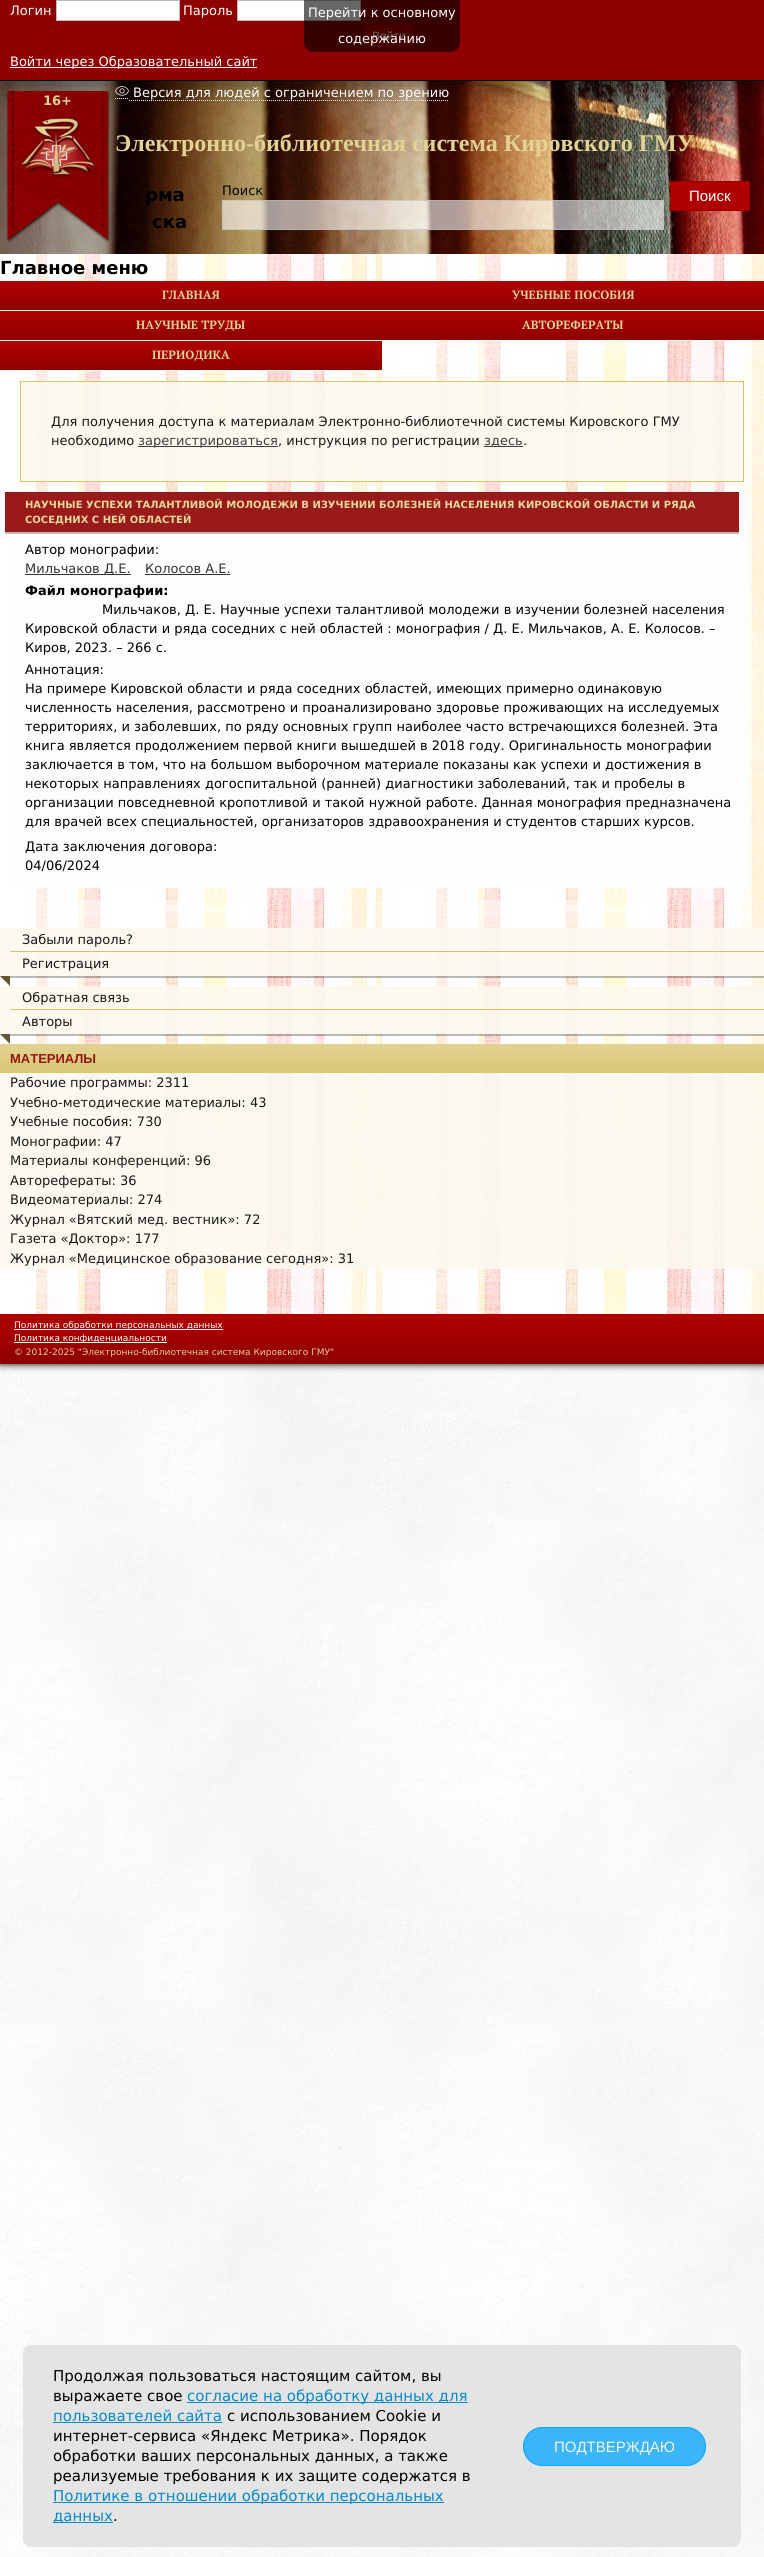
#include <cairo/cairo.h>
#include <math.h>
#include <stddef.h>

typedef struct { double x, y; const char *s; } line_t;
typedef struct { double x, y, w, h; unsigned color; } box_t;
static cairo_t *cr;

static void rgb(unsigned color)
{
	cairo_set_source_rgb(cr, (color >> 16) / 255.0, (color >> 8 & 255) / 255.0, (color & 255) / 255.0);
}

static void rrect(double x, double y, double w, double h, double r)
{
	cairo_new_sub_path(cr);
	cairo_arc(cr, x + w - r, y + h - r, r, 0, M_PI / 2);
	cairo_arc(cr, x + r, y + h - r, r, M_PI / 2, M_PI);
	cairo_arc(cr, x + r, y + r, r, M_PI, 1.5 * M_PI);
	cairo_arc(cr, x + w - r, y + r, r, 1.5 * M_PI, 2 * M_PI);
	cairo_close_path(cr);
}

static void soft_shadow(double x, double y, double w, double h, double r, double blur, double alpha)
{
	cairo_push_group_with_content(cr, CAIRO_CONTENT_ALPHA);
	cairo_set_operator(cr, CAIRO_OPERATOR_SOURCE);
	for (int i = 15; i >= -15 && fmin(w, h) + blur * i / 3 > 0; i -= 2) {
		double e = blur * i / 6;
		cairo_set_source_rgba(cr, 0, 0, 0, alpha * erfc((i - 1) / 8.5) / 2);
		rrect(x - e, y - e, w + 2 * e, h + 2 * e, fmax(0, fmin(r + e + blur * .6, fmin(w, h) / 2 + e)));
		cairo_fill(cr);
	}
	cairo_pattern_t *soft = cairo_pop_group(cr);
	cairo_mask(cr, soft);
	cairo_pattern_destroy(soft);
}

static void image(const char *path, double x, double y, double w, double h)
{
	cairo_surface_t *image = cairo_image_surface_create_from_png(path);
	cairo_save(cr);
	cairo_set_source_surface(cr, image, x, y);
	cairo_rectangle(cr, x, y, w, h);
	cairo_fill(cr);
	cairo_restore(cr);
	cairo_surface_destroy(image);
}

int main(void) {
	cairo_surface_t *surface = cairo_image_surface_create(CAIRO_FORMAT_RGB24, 764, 2557);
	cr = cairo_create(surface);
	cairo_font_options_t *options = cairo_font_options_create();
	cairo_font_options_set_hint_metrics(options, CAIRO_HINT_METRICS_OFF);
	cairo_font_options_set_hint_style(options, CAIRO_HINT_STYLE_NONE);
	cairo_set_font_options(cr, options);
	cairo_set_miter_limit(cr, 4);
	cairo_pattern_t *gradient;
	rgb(0xffffff);
	cairo_paint(cr);
	image("img/1.png", 0, 1364, 764, 1193);
	rgb(0x000000);
	soft_shadow(0, 0, 764, 1364, 0, 4, 1);
	image("img/2.png", 0, 254, 764, 1060);
	image("img/3.png", 0, 81, 764, 173);
	image("img/5.png", 115, 86, 14, 10);
	cairo_new_path(cr);
	cairo_move_to(cr, 115, 98.5);
	cairo_line_to(cr, 129, 98.5);
	rgb(0xffffff);
	cairo_set_line_width(cr, 1);
	cairo_set_dash(cr, (double[]){1, 1}, 2, 0);
	cairo_stroke(cr);
	cairo_new_path(cr);
	cairo_move_to(cr, 129, 100.5);
	cairo_line_to(cr, 449, 100.5);
	cairo_stroke(cr);
	rgb(0x000000);
	soft_shadow(1, 3, 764, 81, 0, 16.5, 0.51);
	rgb(0x8f0000);
	cairo_rectangle(cr, 0, 0, 764, 80);
	cairo_fill(cr);
	rgb(0x000000);
	cairo_rectangle(cr, 0, 80, 764, 1);
	cairo_fill(cr);
	rgb(0xffffff);
	cairo_rectangle(cr, 56.5, 0.5, 123, 20);
	cairo_fill_preserve(cr);
	rgb(0xbcbbbb);
	cairo_set_dash(cr, NULL, 0, 0);
	cairo_stroke(cr);
	rgb(0xffffff);
	cairo_rectangle(cr, 237.5, 0.5, 123, 20);
	cairo_fill_preserve(cr);
	rgb(0xbcbbbb);
	cairo_stroke(cr);
	rgb(0xb00000);
	cairo_rectangle(cr, 364.5, 24.5, 49, 23);
	cairo_fill_preserve(cr);
	rgb(0x990000);
	cairo_stroke(cr);
	rgb(0xffffff);
	cairo_rectangle(cr, 10, 67, 247, 1);
	cairo_fill(cr);
	image("img/4.png", 6, 91, 105, 152);
	cairo_set_source_rgba(cr, 1, 1, 1, 0.6);
	cairo_rectangle(cr, 222, 200, 442, 30);
	cairo_fill(cr);
	cairo_rectangle(cr, 222.5, 200.5, 441, 29);
	cairo_set_source_rgba(cr, 0.737, 0.733, 0.733, 0.6);
	cairo_stroke(cr);
	rgb(0xb00000);
	cairo_rectangle(cr, 670.5, 181.5, 79, 29);
	cairo_fill_preserve(cr);
	rgb(0x990000);
	cairo_stroke(cr);
	gradient = cairo_pattern_create_linear(191, 281, 191, 310);
	cairo_pattern_add_color_stop_rgba(gradient, 0, 0.69, 0, 0, 1);
	cairo_pattern_add_color_stop_rgba(gradient, 1, 0.561, 0, 0, 1);
	cairo_set_source(cr, gradient);
	cairo_pattern_destroy(gradient);
	cairo_rectangle(cr, 0, 281, 382, 29);
	cairo_fill(cr);
	rgb(0xffffff);
	cairo_rectangle(cr, 35, 310, 729, 1);
	cairo_fill(cr);
	gradient = cairo_pattern_create_linear(573, 281, 573, 310);
	cairo_pattern_add_color_stop_rgba(gradient, 0, 0.69, 0, 0, 1);
	cairo_pattern_add_color_stop_rgba(gradient, 1, 0.561, 0, 0, 1);
	cairo_set_source(cr, gradient);
	cairo_pattern_destroy(gradient);
	cairo_rectangle(cr, 382, 281, 382, 29);
	cairo_fill(cr);
	gradient = cairo_pattern_create_linear(191, 311, 191, 340);
	cairo_pattern_add_color_stop_rgba(gradient, 0, 0.69, 0, 0, 1);
	cairo_pattern_add_color_stop_rgba(gradient, 1, 0.561, 0, 0, 1);
	cairo_set_source(cr, gradient);
	cairo_pattern_destroy(gradient);
	cairo_rectangle(cr, 0, 311, 382, 29);
	cairo_fill(cr);
	rgb(0xffffff);
	cairo_rectangle(cr, 32, 340, 732, 1);
	cairo_fill(cr);
	gradient = cairo_pattern_create_linear(573, 311, 573, 340);
	cairo_pattern_add_color_stop_rgba(gradient, 0, 0.69, 0, 0, 1);
	cairo_pattern_add_color_stop_rgba(gradient, 1, 0.561, 0, 0, 1);
	cairo_set_source(cr, gradient);
	cairo_pattern_destroy(gradient);
	cairo_rectangle(cr, 382, 311, 382, 29);
	cairo_fill(cr);
	gradient = cairo_pattern_create_linear(191, 341, 191, 370);
	cairo_pattern_add_color_stop_rgba(gradient, 0, 0.69, 0, 0, 1);
	cairo_pattern_add_color_stop_rgba(gradient, 1, 0.561, 0, 0, 1);
	cairo_set_source(cr, gradient);
	cairo_pattern_destroy(gradient);
	cairo_rectangle(cr, 0, 341, 382, 29);
	cairo_fill(cr);
	rgb(0xffffff);
	cairo_rectangle(cr, 33, 370, 349, 1);
	cairo_fill(cr);
	cairo_set_source_rgba(cr, 0.984, 0.976, 0.937, 0.9);
	cairo_rectangle(cr, 20, 381, 724, 101);
	cairo_fill(cr);
	cairo_rectangle(cr, 20.5, 381.5, 723, 100);
	cairo_set_source_rgba(cr, 0.831, 0.745, 0.369, 0.9);
	cairo_stroke(cr);
	cairo_set_source_rgba(cr, 0.173, 0.173, 0.173, 0.9);
	cairo_rectangle(cr, 138, 446, 140, 1);
	cairo_fill(cr);
	cairo_rectangle(cr, 484, 446, 39, 1);
	cairo_fill(cr);
	rgb(0xfdfdfd);
	rrect(15, 492, 734, 396, 3);
	cairo_fill(cr);
	{
		static const box_t items[] = {
			{5, 532, 734, 2, 0xb9b9b9},
			{5, 492, 734, 40, 0x9a1919},
			{25, 574, 106, 1, 0x333333},
			{145, 574, 85, 1, 0x333333},
		};
		for (size_t i = 0; i < sizeof items / sizeof *items; i++) {
			rgb(items[i].color);
			cairo_rectangle(cr, items[i].x, items[i].y, items[i].w, items[i].h);
			cairo_fill(cr);
		}
	}
	cairo_set_source_rgba(cr, 0, 0, 0, 0.27);
	cairo_new_path(cr);
	cairo_move_to(cr, 1, 976);
	cairo_line_to(cr, 1, 978);
	cairo_line_to(cr, 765, 978);
	cairo_line_to(cr, 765, 930);
	cairo_line_to(cr, 764, 930);
	cairo_line_to(cr, 764, 976);
	cairo_close_path(cr);
	cairo_fill(cr);
	cairo_set_source_rgba(cr, 0.984, 0.976, 0.937, 0.9);
	cairo_rectangle(cr, 0, 928, 764, 48);
	cairo_fill(cr);
	cairo_set_source_rgba(cr, 0.831, 0.745, 0.369, 0.9);
	cairo_rectangle(cr, 10, 951, 754, 1);
	cairo_fill(cr);
	rgb(0x62592c);
	cairo_new_path(cr);
	cairo_move_to(cr, 10, 976);
	cairo_line_to(cr, 10, 986);
	cairo_line_to(cr, 0, 976);
	cairo_close_path(cr);
	cairo_fill(cr);
	cairo_set_source_rgba(cr, 0, 0, 0, 0.27);
	cairo_new_path(cr);
	cairo_move_to(cr, 1, 1034);
	cairo_line_to(cr, 1, 1036);
	cairo_line_to(cr, 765, 1036);
	cairo_line_to(cr, 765, 988);
	cairo_line_to(cr, 764, 988);
	cairo_line_to(cr, 764, 1034);
	cairo_close_path(cr);
	cairo_fill(cr);
	cairo_set_source_rgba(cr, 0.984, 0.976, 0.937, 0.9);
	cairo_rectangle(cr, 0, 986, 764, 48);
	cairo_fill(cr);
	cairo_set_source_rgba(cr, 0.831, 0.745, 0.369, 0.9);
	cairo_rectangle(cr, 10, 1009, 754, 1);
	cairo_fill(cr);
	rgb(0x62592c);
	cairo_new_path(cr);
	cairo_move_to(cr, 10, 1034);
	cairo_line_to(cr, 10, 1044);
	cairo_line_to(cr, 0, 1034);
	cairo_close_path(cr);
	cairo_fill(cr);
	cairo_set_source_rgba(cr, 0.984, 0.976, 0.937, 0.9);
	cairo_rectangle(cr, 0, 1073, 764, 196);
	cairo_fill(cr);
	gradient = cairo_pattern_create_linear(382, 1044, 382, 1073);
	cairo_pattern_add_color_stop_rgba(gradient, 0, 0.886, 0.827, 0.576, 1);
	cairo_pattern_add_color_stop_rgba(gradient, 1, 0.851, 0.78, 0.451, 1);
	cairo_set_source(cr, gradient);
	cairo_pattern_destroy(gradient);
	cairo_rectangle(cr, 0, 1044, 764, 29);
	cairo_fill(cr);
	gradient = cairo_pattern_create_linear(382, 1314, 382, 1364);
	cairo_pattern_add_color_stop_rgba(gradient, 0, 0.69, 0, 0, 1);
	cairo_pattern_add_color_stop_rgba(gradient, 1, 0.561, 0, 0, 1);
	cairo_set_source(cr, gradient);
	cairo_pattern_destroy(gradient);
	cairo_rectangle(cr, 0, 1314, 764, 50);
	cairo_fill(cr);
	rgb(0xffffff);
	cairo_rectangle(cr, 14, 1329, 209, 1);
	cairo_fill(cr);
	cairo_rectangle(cr, 14, 1342, 153, 1);
	cairo_fill(cr);
	cairo_set_source_rgba(cr, 0.89, 0.89, 0.89, 0.95);
	rrect(23, 2345, 718, 202, 8);
	cairo_fill(cr);
	{
		static const box_t items[] = {
			{187, 2402, 281, 1, 0x028acc},
			{53, 2422, 169, 1, 0x028acc},
			{53, 2502, 391, 1, 0x028acc},
			{53, 2522, 60, 1, 0x028acc},
		};
		for (size_t i = 0; i < sizeof items / sizeof *items; i++) {
			rgb(items[i].color);
			cairo_rectangle(cr, items[i].x, items[i].y, items[i].w, items[i].h);
			cairo_fill(cr);
		}
	}
	rgb(0x39b5f8);
	rrect(523, 2427, 183, 39, 19.5);
	cairo_fill(cr);
	rrect(523.5, 2427.5, 182, 38, 19);
	cairo_set_source_rgba(cr, 0, 0.647, 1, 0.75);
	cairo_stroke(cr);
	cairo_select_font_face(cr, "DejaVu Sans", CAIRO_FONT_SLANT_NORMAL, CAIRO_FONT_WEIGHT_NORMAL);
	cairo_set_font_size(cr, 13);
	rgb(0xffffff);
	cairo_move_to(cr, 10, 15);
	cairo_show_text(cr, "Логин");
	cairo_move_to(cr, 183, 15);
	cairo_show_text(cr, "Пароль");
	cairo_select_font_face(cr, "Liberation Sans", CAIRO_FONT_SLANT_NORMAL, CAIRO_FONT_WEIGHT_NORMAL);
	cairo_set_font_size(cr, 12);
	cairo_move_to(cr, 372, 40);
	cairo_show_text(cr, "Войти");
	cairo_select_font_face(cr, "DejaVu Sans", CAIRO_FONT_SLANT_NORMAL, CAIRO_FONT_WEIGHT_NORMAL);
	cairo_set_font_size(cr, 13);
	cairo_move_to(cr, 10, 66);
	cairo_show_text(cr, "Войти через Образовательный сайт");
	cairo_select_font_face(cr, "DejaVu Sans", CAIRO_FONT_SLANT_NORMAL, CAIRO_FONT_WEIGHT_BOLD);
	rgb(0xe2d392);
	cairo_move_to(cr, 43, 105);
	cairo_show_text(cr, "16+");
	cairo_select_font_face(cr, "DejaVu Sans", CAIRO_FONT_SLANT_NORMAL, CAIRO_FONT_WEIGHT_NORMAL);
	rgb(0xffffff);
	cairo_move_to(cr, 133, 97);
	cairo_show_text(cr, "Версия для людей с ограничением по зрению");
	cairo_select_font_face(cr, "Liberation Serif", CAIRO_FONT_SLANT_NORMAL, CAIRO_FONT_WEIGHT_BOLD);
	cairo_set_font_size(cr, 24);
	rgb(0xe2d392);
	cairo_move_to(cr, 115, 151);
	cairo_show_text(cr, "Электронно-библиотечная система Кировского ГМУ");
	cairo_select_font_face(cr, "DejaVu Sans", CAIRO_FONT_SLANT_NORMAL, CAIRO_FONT_WEIGHT_BOLD);
	cairo_set_font_size(cr, 18);
	rgb(0x000000);
	cairo_move_to(cr, 145, 201);
	cairo_show_text(cr, "рма");
	cairo_move_to(cr, 152, 228);
	cairo_show_text(cr, "ска");
	cairo_select_font_face(cr, "DejaVu Sans", CAIRO_FONT_SLANT_NORMAL, CAIRO_FONT_WEIGHT_NORMAL);
	cairo_set_font_size(cr, 13);
	cairo_move_to(cr, 222, 195);
	cairo_show_text(cr, "Поиск");
	cairo_select_font_face(cr, "Liberation Sans", CAIRO_FONT_SLANT_NORMAL, CAIRO_FONT_WEIGHT_NORMAL);
	cairo_set_font_size(cr, 15);
	rgb(0xffffff);
	cairo_move_to(cr, 689, 201);
	cairo_show_text(cr, "Поиск");
	cairo_select_font_face(cr, "DejaVu Sans", CAIRO_FONT_SLANT_NORMAL, CAIRO_FONT_WEIGHT_BOLD);
	cairo_set_font_size(cr, 18);
	rgb(0x000000);
	cairo_move_to(cr, 0, 274);
	cairo_show_text(cr, "Главное меню");
	cairo_select_font_face(cr, "PT Serif", CAIRO_FONT_SLANT_NORMAL, CAIRO_FONT_WEIGHT_BOLD);
	cairo_set_font_size(cr, 12);
	rgb(0xe2d392);
	{
		static const line_t items[] = {
			{162, 299, "ГЛАВНАЯ"},
			{512, 299, "УЧЕБНЫЕ ПОСОБИЯ"},
			{136, 329, "НАУЧНЫЕ ТРУДЫ"},
			{522, 329, "АВТОРЕФЕРАТЫ"},
			{152, 359, "ПЕРИОДИКА"},
		};
		for (size_t i = 0; i < sizeof items / sizeof *items; i++) {
			cairo_move_to(cr, items[i].x, items[i].y);
			cairo_show_text(cr, items[i].s);
		}
	}
	cairo_select_font_face(cr, "DejaVu Sans", CAIRO_FONT_SLANT_NORMAL, CAIRO_FONT_WEIGHT_NORMAL);
	cairo_set_font_size(cr, 13);
	rgb(0x191918);
	cairo_move_to(cr, 51, 426);
	cairo_show_text(cr, "Для получения доступа к материалам Электронно-библиотечной системы Кировского ГМУ");
	cairo_move_to(cr, 51, 445);
	cairo_show_text(cr, "необходимо");
	rgb(0x41403f);
	cairo_move_to(cr, 138, 445);
	cairo_show_text(cr, "зарегистрироваться");
	rgb(0x191918);
	cairo_move_to(cr, 278, 445);
	cairo_show_text(cr, ", инструкция по регистрации");
	rgb(0x41403f);
	cairo_move_to(cr, 484, 445);
	cairo_show_text(cr, "здесь");
	rgb(0x191918);
	cairo_move_to(cr, 523, 445);
	cairo_show_text(cr, ".");
	cairo_select_font_face(cr, "DejaVu Sans", CAIRO_FONT_SLANT_NORMAL, CAIRO_FONT_WEIGHT_BOLD);
	cairo_set_font_size(cr, 10);
	rgb(0xe5d79d);
	cairo_move_to(cr, 25, 508);
	cairo_show_text(cr, "НАУЧНЫЕ УСПЕХИ ТАЛАНТЛИВОЙ МОЛОДЕЖИ В ИЗУЧЕНИИ БОЛЕЗНЕЙ НАСЕЛЕНИЯ КИРОВСКОЙ ОБЛАСТИ И РЯДА");
	cairo_move_to(cr, 25, 523);
	cairo_show_text(cr, "СОСЕДНИХ С НЕЙ ОБЛАСТЕЙ");
	cairo_select_font_face(cr, "DejaVu Sans", CAIRO_FONT_SLANT_NORMAL, CAIRO_FONT_WEIGHT_NORMAL);
	cairo_set_font_size(cr, 13);
	rgb(0x000000);
	cairo_move_to(cr, 25, 554);
	cairo_show_text(cr, "Автор монографии:");
	rgb(0x333333);
	cairo_move_to(cr, 25, 573);
	cairo_show_text(cr, "Мильчаков Д.Е.");
	cairo_move_to(cr, 145, 573);
	cairo_show_text(cr, "Колосов А.Е.");
	cairo_select_font_face(cr, "DejaVu Sans", CAIRO_FONT_SLANT_NORMAL, CAIRO_FONT_WEIGHT_BOLD);
	rgb(0x000000);
	cairo_move_to(cr, 25, 595);
	cairo_show_text(cr, "Файл монографии:");
	cairo_select_font_face(cr, "DejaVu Sans", CAIRO_FONT_SLANT_NORMAL, CAIRO_FONT_WEIGHT_NORMAL);
	{
		static const line_t items[] = {
			{102, 614, "Мильчаков, Д. Е. Научные успехи талантливой молодежи в изучении болезней населения"},
			{25, 633, "Кировской области и ряда соседних с ней областей : монография / Д. Е. Мильчаков, А. Е. Колосов. –"},
			{25, 652, "Киров, 2023. – 266 с."},
			{25, 674, "Аннотация:"},
			{25, 693, "На примере Кировской области и ряда соседних областей, имеющих примерно одинаковую"},
			{25, 712, "численность населения, рассмотрено и проанализировано здоровье проживающих на исследуемых"},
			{25, 731, "территориях, и заболевших, по ряду основных групп наиболее часто встречающихся болезней. Эта"},
			{25, 750, "книга является продолжением первой книги вышедшей в 2018 году. Оригинальность монографии"},
			{25, 769, "заключается в том, что на большом выборочном материале показаны как успехи и достижения в"},
			{25, 788, "некоторых направлениях догоспитальной (ранней) диагностики заболеваний, так и пробелы в"},
			{25, 807, "организации повседневной кропотливой и такой нужной работе. Данная монография предназначена"},
			{25, 826, "для врачей всех специальностей, организаторов здравоохранения и студентов старших курсов."},
			{25, 851, "Дата заключения договора:"},
			{25, 870, "04/06/2024"},
		};
		for (size_t i = 0; i < sizeof items / sizeof *items; i++) {
			cairo_move_to(cr, items[i].x, items[i].y);
			cairo_show_text(cr, items[i].s);
		}
	}
	rgb(0x191918);
	{
		static const line_t items[] = {
			{22, 944, "Забыли пароль?"},
			{22, 968, "Регистрация"},
			{22, 1002, "Обратная связь"},
			{22, 1026, "Авторы"},
		};
		for (size_t i = 0; i < sizeof items / sizeof *items; i++) {
			cairo_move_to(cr, items[i].x, items[i].y);
			cairo_show_text(cr, items[i].s);
		}
	}
	cairo_select_font_face(cr, "Liberation Sans", CAIRO_FONT_SLANT_NORMAL, CAIRO_FONT_WEIGHT_BOLD);
	rgb(0x97140d);
	cairo_move_to(cr, 10, 1063);
	cairo_show_text(cr, "МАТЕРИАЛЫ");
	cairo_select_font_face(cr, "DejaVu Sans", CAIRO_FONT_SLANT_NORMAL, CAIRO_FONT_WEIGHT_NORMAL);
	rgb(0x191918);
	{
		static const line_t items[] = {
			{10, 1087, "Рабочие программы: 2311"},
			{10, 1107, "Учебно-методические материалы: 43"},
			{10, 1126, "Учебные пособия: 730"},
			{10, 1146, "Монографии: 47"},
			{10, 1165, "Материалы конференций: 96"},
			{10, 1185, "Авторефераты: 36"},
			{10, 1204, "Видеоматериалы: 274"},
			{10, 1224, "Журнал «Вятский мед. вестник»: 72"},
			{10, 1243, "Газета «Доктор»: 177"},
			{10, 1263, "Журнал «Медицинское образование сегодня»: 31"},
		};
		for (size_t i = 0; i < sizeof items / sizeof *items; i++) {
			cairo_move_to(cr, items[i].x, items[i].y);
			cairo_show_text(cr, items[i].s);
		}
	}
	cairo_set_font_size(cr, 9);
	rgb(0xffffff);
	cairo_move_to(cr, 14, 1328);
	cairo_show_text(cr, "Политика обработки персональных данных");
	cairo_move_to(cr, 14, 1341);
	cairo_show_text(cr, "Политика конфиденциальности");
	rgb(0xe2d392);
	cairo_move_to(cr, 14, 1355);
	cairo_show_text(cr, "© 2012-2025 \"Электронно-библиотечная система Кировского ГМУ\"");
	cairo_set_font_size(cr, 15);
	rgb(0x000000);
	cairo_move_to(cr, 53, 2381);
	cairo_show_text(cr, "Продолжая пользоваться настоящим сайтом, вы");
	cairo_move_to(cr, 53, 2401);
	cairo_show_text(cr, "выражаете свое");
	rgb(0x028acc);
	cairo_move_to(cr, 187, 2401);
	cairo_show_text(cr, "согласие на обработку данных для");
	cairo_move_to(cr, 53, 2421);
	cairo_show_text(cr, "пользователей сайта");
	rgb(0x000000);
	{
		static const line_t items[] = {
			{227, 2421, "с использованием Cookie и"},
			{53, 2441, "интернет-сервиса «Яндекс Метрика». Порядок"},
			{53, 2461, "обработки ваших персональных данных, а также"},
			{53, 2481, "реализуемые требования к их защите содержатся в"},
		};
		for (size_t i = 0; i < sizeof items / sizeof *items; i++) {
			cairo_move_to(cr, items[i].x, items[i].y);
			cairo_show_text(cr, items[i].s);
		}
	}
	rgb(0x028acc);
	cairo_move_to(cr, 53, 2501);
	cairo_show_text(cr, "Политике в отношении обработки персональных");
	cairo_move_to(cr, 53, 2521);
	cairo_show_text(cr, "данных");
	rgb(0x000000);
	cairo_move_to(cr, 113, 2521);
	cairo_show_text(cr, ".");
	cairo_select_font_face(cr, "Liberation Sans", CAIRO_FONT_SLANT_NORMAL, CAIRO_FONT_WEIGHT_NORMAL);
	rgb(0xf4f4f4);
	cairo_move_to(cr, 554, 2452);
	cairo_show_text(cr, "ПОДТВЕРЖДАЮ");
	cairo_set_source_rgba(cr, 0, 0, 0, 0.6);
	cairo_new_path(cr);
	cairo_move_to(cr, 304, 0);
	cairo_line_to(cr, 460, 0);
	cairo_line_to(cr, 460, 42);
	cairo_curve_to(cr, 460, 47.5, 455.5, 52, 450, 52);
	cairo_line_to(cr, 314, 52);
	cairo_curve_to(cr, 308.5, 52, 304, 47.5, 304, 42);
	cairo_close_path(cr);
	cairo_fill(cr);
	cairo_select_font_face(cr, "DejaVu Sans", CAIRO_FONT_SLANT_NORMAL, CAIRO_FONT_WEIGHT_NORMAL);
	cairo_set_font_size(cr, 13);
	rgb(0xffffff);
	cairo_move_to(cr, 308, 17);
	cairo_show_text(cr, "Перейти к основному");
	cairo_move_to(cr, 338, 43);
	cairo_show_text(cr, "содержанию");
	cairo_surface_write_to_png(surface, "page.png");
	cairo_font_options_destroy(options);
	cairo_destroy(cr);
	cairo_surface_destroy(surface);
	return 0;
}
